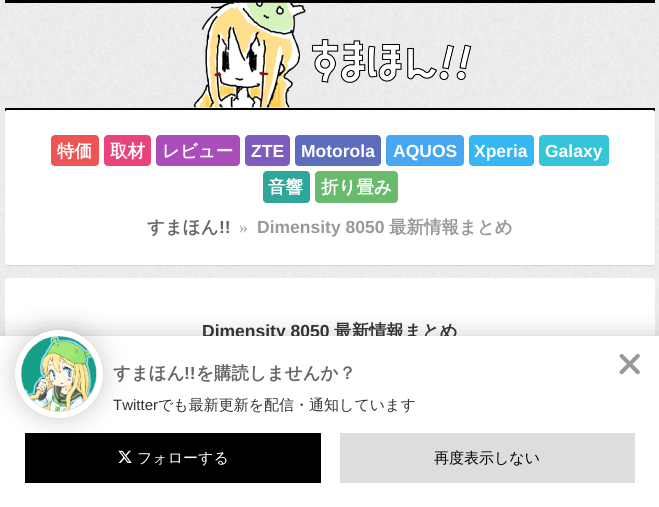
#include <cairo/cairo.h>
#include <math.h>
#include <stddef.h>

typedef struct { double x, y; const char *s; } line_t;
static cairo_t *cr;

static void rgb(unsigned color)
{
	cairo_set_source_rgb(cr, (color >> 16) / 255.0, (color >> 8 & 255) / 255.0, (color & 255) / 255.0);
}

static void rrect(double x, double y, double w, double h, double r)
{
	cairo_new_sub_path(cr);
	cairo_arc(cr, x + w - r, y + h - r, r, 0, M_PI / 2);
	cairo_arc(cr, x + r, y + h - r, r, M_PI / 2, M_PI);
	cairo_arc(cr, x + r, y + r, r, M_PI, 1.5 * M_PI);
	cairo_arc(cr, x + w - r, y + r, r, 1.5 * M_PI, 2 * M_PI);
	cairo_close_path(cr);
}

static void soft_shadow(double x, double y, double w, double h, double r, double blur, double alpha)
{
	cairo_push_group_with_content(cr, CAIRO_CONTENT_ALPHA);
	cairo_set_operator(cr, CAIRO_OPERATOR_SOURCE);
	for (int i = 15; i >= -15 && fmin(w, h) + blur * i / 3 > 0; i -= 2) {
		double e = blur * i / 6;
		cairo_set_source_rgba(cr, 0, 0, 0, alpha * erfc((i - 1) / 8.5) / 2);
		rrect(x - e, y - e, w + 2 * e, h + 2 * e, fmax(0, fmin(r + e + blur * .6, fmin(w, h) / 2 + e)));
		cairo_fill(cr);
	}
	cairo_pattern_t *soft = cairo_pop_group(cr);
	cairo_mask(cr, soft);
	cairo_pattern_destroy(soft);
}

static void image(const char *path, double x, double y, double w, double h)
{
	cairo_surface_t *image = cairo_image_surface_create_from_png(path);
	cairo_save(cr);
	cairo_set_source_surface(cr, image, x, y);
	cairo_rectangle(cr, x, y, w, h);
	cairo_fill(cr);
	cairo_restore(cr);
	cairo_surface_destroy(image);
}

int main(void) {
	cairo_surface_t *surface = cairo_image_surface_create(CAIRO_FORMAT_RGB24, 659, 507);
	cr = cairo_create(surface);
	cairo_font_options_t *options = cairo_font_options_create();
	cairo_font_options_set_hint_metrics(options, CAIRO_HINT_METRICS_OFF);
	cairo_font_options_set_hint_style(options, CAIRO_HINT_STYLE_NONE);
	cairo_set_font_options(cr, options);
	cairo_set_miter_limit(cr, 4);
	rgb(0xffffff);
	cairo_paint(cr);
	image("img/1.png", 0, 0, 659, 336);
	rgb(0x000000);
	cairo_rectangle(cr, 5, 0, 650, 3);
	cairo_fill(cr);
	cairo_rectangle(cr, 5, 108, 650, 3);
	cairo_fill(cr);
	image("img/2.png", 193, 2, 279, 106);
	rgb(0x000000);
	soft_shadow(5, 111, 650, 155, 2.5, 0.5, 0.1);
	rgb(0xffffff);
	rrect(5, 110, 650, 155, 2.5);
	cairo_fill(cr);
	rgb(0xed5454);
	rrect(51, 135, 48, 31, 4);
	cairo_fill(cr);
	rgb(0xea437b);
	rrect(104, 135, 47, 31, 4);
	cairo_fill(cr);
	rgb(0xaa4cba);
	rrect(156, 135, 84, 31, 4);
	cairo_fill(cr);
	rgb(0x7e5bbf);
	rrect(245, 135, 45, 31, 4);
	cairo_fill(cr);
	rgb(0x5d6dbe);
	rrect(295, 135, 86, 31, 4);
	cairo_fill(cr);
	rgb(0x48a7f2);
	rrect(386, 135, 78, 31, 4);
	cairo_fill(cr);
	rgb(0x35b7f3);
	rrect(469, 135, 65, 31, 4);
	cairo_fill(cr);
	rgb(0x34c6d8);
	rrect(539, 135, 70, 31, 4);
	cairo_fill(cr);
	rgb(0x2fa69a);
	rrect(263, 171, 47, 32, 4);
	cairo_fill(cr);
	rgb(0x69ba6d);
	rrect(315, 171, 83, 32, 4);
	cairo_fill(cr);
	rgb(0xffffff);
	rrect(5, 278, 650, 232, 2.5);
	cairo_fill(cr);
	rgb(0x000000);
	soft_shadow(0, 336, 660, 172, 0, 12.5, 0.2);
	cairo_select_font_face(cr, "WenQuanYi Zen Hei", CAIRO_FONT_SLANT_NORMAL, CAIRO_FONT_WEIGHT_BOLD);
	cairo_set_font_size(cr, 17.5);
	rgb(0xffffff);
	{
		static const line_t items[] = {
			{57, 157, "特価"},
			{110, 157, "取材"},
			{162, 157, "レビュー"},
		};
		for (size_t i = 0; i < sizeof items / sizeof *items; i++) {
			cairo_move_to(cr, items[i].x, items[i].y);
			cairo_show_text(cr, items[i].s);
		}
	}
	cairo_select_font_face(cr, "Liberation Sans", CAIRO_FONT_SLANT_NORMAL, CAIRO_FONT_WEIGHT_BOLD);
	{
		static const line_t items[] = {
			{251, 157, "ZTE"},
			{301, 157, "Motorola"},
			{393, 157, "AQUOS"},
			{474, 157, "Xperia"},
			{545, 157, "Galaxy"},
		};
		for (size_t i = 0; i < sizeof items / sizeof *items; i++) {
			cairo_move_to(cr, items[i].x, items[i].y);
			cairo_show_text(cr, items[i].s);
		}
	}
	cairo_select_font_face(cr, "WenQuanYi Zen Hei", CAIRO_FONT_SLANT_NORMAL, CAIRO_FONT_WEIGHT_BOLD);
	cairo_move_to(cr, 268, 193);
	cairo_show_text(cr, "音響");
	cairo_move_to(cr, 321, 193);
	cairo_show_text(cr, "折り畳み");
	rgb(0x666666);
	cairo_move_to(cr, 147, 233);
	cairo_show_text(cr, "すまほん");
	cairo_select_font_face(cr, "Liberation Sans", CAIRO_FONT_SLANT_NORMAL, CAIRO_FONT_WEIGHT_BOLD);
	cairo_move_to(cr, 219, 233);
	cairo_show_text(cr, "!!");
	cairo_select_font_face(cr, "Liberation Serif", CAIRO_FONT_SLANT_NORMAL, CAIRO_FONT_WEIGHT_NORMAL);
	rgb(0x999999);
	cairo_move_to(cr, 239, 233);
	cairo_show_text(cr, "»");
	cairo_select_font_face(cr, "Liberation Sans", CAIRO_FONT_SLANT_NORMAL, CAIRO_FONT_WEIGHT_BOLD);
	cairo_move_to(cr, 257, 233);
	cairo_show_text(cr, "Dimensity 8050");
	cairo_select_font_face(cr, "WenQuanYi Zen Hei", CAIRO_FONT_SLANT_NORMAL, CAIRO_FONT_WEIGHT_BOLD);
	cairo_move_to(cr, 389, 233);
	cairo_show_text(cr, "最新情報まとめ");
	cairo_select_font_face(cr, "Liberation Sans", CAIRO_FONT_SLANT_NORMAL, CAIRO_FONT_WEIGHT_BOLD);
	rgb(0x333333);
	cairo_move_to(cr, 202, 337);
	cairo_show_text(cr, "Dimensity 8050");
	cairo_select_font_face(cr, "WenQuanYi Zen Hei", CAIRO_FONT_SLANT_NORMAL, CAIRO_FONT_WEIGHT_BOLD);
	cairo_move_to(cr, 334, 337);
	cairo_show_text(cr, "最新情報まとめ");
	rgb(0xffffff);
	cairo_rectangle(cr, 0, 336, 659, 171);
	cairo_fill(cr);
	rgb(0x666666);
	cairo_move_to(cr, 113, 379);
	cairo_show_text(cr, "すまほん");
	cairo_select_font_face(cr, "Liberation Sans", CAIRO_FONT_SLANT_NORMAL, CAIRO_FONT_WEIGHT_BOLD);
	cairo_move_to(cr, 184, 379);
	cairo_show_text(cr, "!!");
	cairo_select_font_face(cr, "WenQuanYi Zen Hei", CAIRO_FONT_SLANT_NORMAL, CAIRO_FONT_WEIGHT_BOLD);
	cairo_move_to(cr, 196, 379);
	cairo_show_text(cr, "を購読しませんか？");
	image("img/4.png", 619, 353, 21, 22);
	cairo_select_font_face(cr, "Liberation Sans", CAIRO_FONT_SLANT_NORMAL, CAIRO_FONT_WEIGHT_NORMAL);
	cairo_set_font_size(cr, 15);
	rgb(0x333333);
	cairo_move_to(cr, 113, 410);
	cairo_show_text(cr, "Twitter");
	cairo_select_font_face(cr, "WenQuanYi Zen Hei Medium", CAIRO_FONT_SLANT_NORMAL, CAIRO_FONT_WEIGHT_NORMAL);
	cairo_move_to(cr, 158, 410);
	cairo_show_text(cr, "でも最新更新を配信・通知しています");
	rgb(0x000000);
	cairo_rectangle(cr, 25, 433, 296, 50);
	cairo_fill(cr);
	image("img/5.png", 118, 450, 14, 13);
	rgb(0x000000);
	soft_shadow(15, 330, 88, 88, 44, 12.5, 0.2);
	cairo_arc(cr, 59, 374, 41, 0, 2 * M_PI);
	rgb(0xffffff);
	cairo_set_line_width(cr, 6);
	cairo_stroke(cr);
	image("img/3.png", 21, 336, 76, 76);
	cairo_move_to(cr, 137, 463);
	cairo_show_text(cr, "フォローする");
	rgb(0xdddddd);
	cairo_rectangle(cr, 340, 433, 295, 50);
	cairo_fill(cr);
	rgb(0x000000);
	cairo_move_to(cr, 434, 463);
	cairo_show_text(cr, "再度表示しない");
	cairo_surface_write_to_png(surface, "page.png");
	cairo_font_options_destroy(options);
	cairo_destroy(cr);
	cairo_surface_destroy(surface);
	return 0;
}
